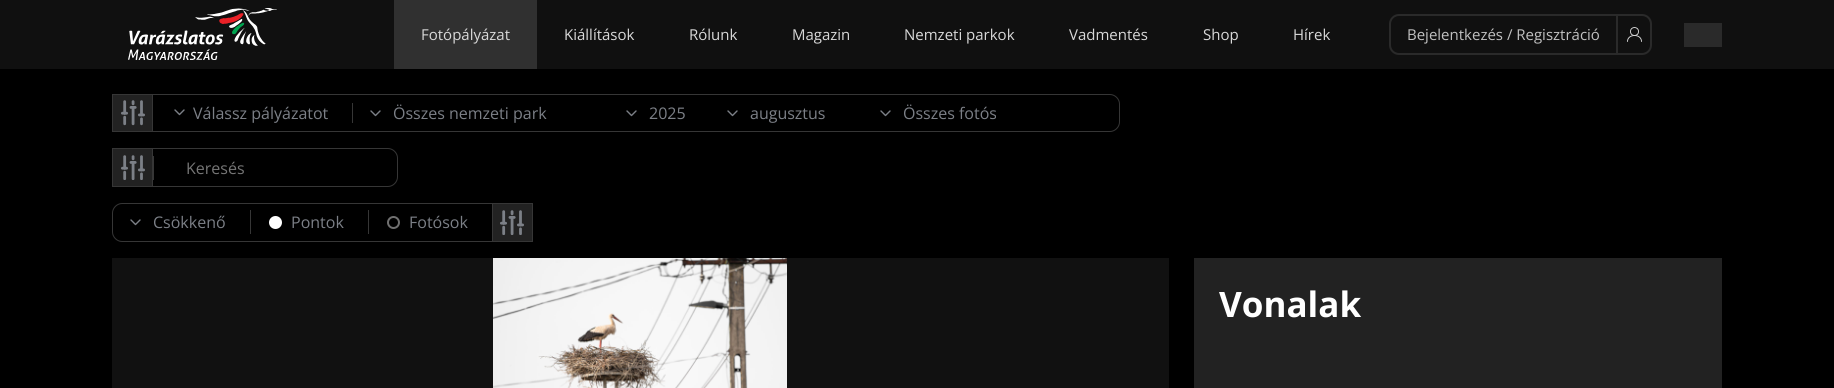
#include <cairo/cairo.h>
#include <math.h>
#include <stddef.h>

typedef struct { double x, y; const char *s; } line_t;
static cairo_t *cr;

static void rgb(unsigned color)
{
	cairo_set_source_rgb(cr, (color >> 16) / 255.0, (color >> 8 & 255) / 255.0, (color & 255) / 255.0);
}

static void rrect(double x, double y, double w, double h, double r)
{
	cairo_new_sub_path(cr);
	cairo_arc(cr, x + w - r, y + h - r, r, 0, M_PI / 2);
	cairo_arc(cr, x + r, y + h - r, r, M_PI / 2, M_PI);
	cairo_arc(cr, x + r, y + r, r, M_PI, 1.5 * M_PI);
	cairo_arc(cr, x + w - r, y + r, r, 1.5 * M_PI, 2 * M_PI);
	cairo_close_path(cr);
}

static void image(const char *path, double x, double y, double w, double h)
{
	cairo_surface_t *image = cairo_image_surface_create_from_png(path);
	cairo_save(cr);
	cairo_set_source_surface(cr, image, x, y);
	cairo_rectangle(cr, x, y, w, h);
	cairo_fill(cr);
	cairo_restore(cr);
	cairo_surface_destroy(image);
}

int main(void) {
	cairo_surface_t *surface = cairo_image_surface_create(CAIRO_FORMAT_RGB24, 1834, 388);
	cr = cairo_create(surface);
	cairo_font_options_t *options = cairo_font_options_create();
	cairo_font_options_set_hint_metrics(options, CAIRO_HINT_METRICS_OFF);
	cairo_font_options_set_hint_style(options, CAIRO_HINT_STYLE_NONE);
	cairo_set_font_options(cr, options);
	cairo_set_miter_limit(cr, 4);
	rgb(0x000000);
	cairo_paint(cr);
	rgb(0x101010);
	cairo_rectangle(cr, 0, 0, 1834, 69);
	cairo_fill(cr);
	image("img/1.png", 128, 8, 149, 52);
	rgb(0x303030);
	cairo_rectangle(cr, 394, 0, 143, 69);
	cairo_fill(cr);
	rrect(1390, 15, 261, 39, 9);
	rgb(0x2a2a2a);
	cairo_stroke(cr);
	cairo_rectangle(cr, 1616, 16, 2, 37);
	cairo_fill(cr);
	cairo_arc(cr, 1634.5, 31.5, 4, 0, 2 * M_PI);
	rgb(0xdcdcdc);
	cairo_set_line_width(cr, 0.9);
	cairo_stroke(cr);
	cairo_new_path(cr);
	cairo_move_to(cr, 1641.5, 41.5);
	cairo_curve_to(cr, 1641.5, 33.5, 1627.5, 33.5, 1627.5, 41.5);
	cairo_set_line_cap(cr, CAIRO_LINE_CAP_ROUND);
	cairo_set_line_join(cr, CAIRO_LINE_JOIN_ROUND);
	cairo_stroke(cr);
	rgb(0x2a2a2a);
	cairo_rectangle(cr, 1684, 23, 38, 24);
	cairo_fill(cr);
	cairo_new_path(cr);
	cairo_move_to(cr, 112.5, 94.5);
	cairo_line_to(cr, 1110, 94.5);
	cairo_curve_to(cr, 1115, 94.5, 1119.5, 99, 1119.5, 104);
	cairo_line_to(cr, 1119.5, 122);
	cairo_curve_to(cr, 1119.5, 127, 1115, 131.5, 1110, 131.5);
	cairo_line_to(cr, 112.5, 131.5);
	cairo_close_path(cr);
	rgb(0x363636);
	cairo_set_line_width(cr, 1);
	cairo_set_line_cap(cr, CAIRO_LINE_CAP_BUTT);
	cairo_set_line_join(cr, CAIRO_LINE_JOIN_MITER);
	cairo_stroke(cr);
	rgb(0x222222);
	cairo_rectangle(cr, 113, 95, 39, 36);
	cairo_fill(cr);
	image("img/2.png", 121, 100, 24, 26);
	rgb(0x363636);
	cairo_rectangle(cr, 152, 95, 1, 36);
	cairo_fill(cr);
	cairo_rectangle(cr, 352, 103, 1, 20);
	cairo_fill(cr);
	cairo_new_path(cr);
	cairo_move_to(cr, 175, 110);
	cairo_line_to(cr, 179.5, 114.5);
	cairo_line_to(cr, 184, 110);
	rgb(0x7c8087);
	cairo_set_line_width(cr, 1.4);
	cairo_set_line_cap(cr, CAIRO_LINE_CAP_ROUND);
	cairo_set_line_join(cr, CAIRO_LINE_JOIN_ROUND);
	cairo_stroke(cr);
	cairo_new_path(cr);
	cairo_move_to(cr, 371, 111);
	cairo_line_to(cr, 375.5, 115.5);
	cairo_line_to(cr, 380, 111);
	cairo_stroke(cr);
	cairo_new_path(cr);
	cairo_move_to(cr, 627, 111);
	cairo_line_to(cr, 631.5, 115.5);
	cairo_line_to(cr, 636, 111);
	cairo_stroke(cr);
	cairo_new_path(cr);
	cairo_move_to(cr, 728, 111);
	cairo_line_to(cr, 732.5, 115.5);
	cairo_line_to(cr, 737, 111);
	cairo_stroke(cr);
	cairo_new_path(cr);
	cairo_move_to(cr, 881, 111);
	cairo_line_to(cr, 885.5, 115.5);
	cairo_line_to(cr, 890, 111);
	cairo_stroke(cr);
	cairo_new_path(cr);
	cairo_move_to(cr, 112.5, 148.5);
	cairo_line_to(cr, 388, 148.5);
	cairo_curve_to(cr, 393, 148.5, 397.5, 153, 397.5, 158);
	cairo_line_to(cr, 397.5, 177);
	cairo_curve_to(cr, 397.5, 182, 393, 186.5, 388, 186.5);
	cairo_line_to(cr, 112.5, 186.5);
	cairo_close_path(cr);
	rgb(0x363636);
	cairo_set_line_width(cr, 1);
	cairo_set_line_cap(cr, CAIRO_LINE_CAP_BUTT);
	cairo_set_line_join(cr, CAIRO_LINE_JOIN_MITER);
	cairo_stroke(cr);
	rgb(0x222222);
	cairo_rectangle(cr, 113, 149, 39, 37);
	cairo_fill(cr);
	image("img/3.png", 121, 155, 24, 25);
	rgb(0x363636);
	cairo_rectangle(cr, 152, 149, 1, 37);
	cairo_fill(cr);
	cairo_rectangle(cr, 153, 156, 1, 24);
	cairo_fill(cr);
	cairo_new_path(cr);
	cairo_move_to(cr, 122, 203.5);
	cairo_line_to(cr, 532.5, 203.5);
	cairo_line_to(cr, 532.5, 241.5);
	cairo_line_to(cr, 122, 241.5);
	cairo_curve_to(cr, 117, 241.5, 112.5, 237, 112.5, 232);
	cairo_line_to(cr, 112.5, 213);
	cairo_curve_to(cr, 112.5, 208, 117, 203.5, 122, 203.5);
	cairo_close_path(cr);
	cairo_stroke(cr);
	cairo_new_path(cr);
	cairo_move_to(cr, 131, 220);
	cairo_line_to(cr, 135.5, 224.5);
	cairo_line_to(cr, 140, 220);
	rgb(0x7c8087);
	cairo_set_line_width(cr, 1.4);
	cairo_set_line_cap(cr, CAIRO_LINE_CAP_ROUND);
	cairo_set_line_join(cr, CAIRO_LINE_JOIN_ROUND);
	cairo_stroke(cr);
	rgb(0x363636);
	cairo_rectangle(cr, 250, 210, 1, 24);
	cairo_fill(cr);
	rgb(0xffffff);
	cairo_arc(cr, 275.5, 222.5, 5.5, 0, 2 * M_PI);
	cairo_fill_preserve(cr);
	cairo_set_line_width(cr, 2);
	cairo_set_line_cap(cr, CAIRO_LINE_CAP_BUTT);
	cairo_set_line_join(cr, CAIRO_LINE_JOIN_MITER);
	cairo_stroke(cr);
	rgb(0x363636);
	cairo_rectangle(cr, 368, 210, 1, 24);
	cairo_fill(cr);
	cairo_arc(cr, 393.5, 222.5, 5.5, 0, 2 * M_PI);
	rgb(0x707070);
	cairo_stroke(cr);
	rgb(0x222222);
	cairo_rectangle(cr, 493, 204, 39, 37);
	cairo_fill(cr);
	image("img/3.png", 500, 210, 24, 25);
	rgb(0x363636);
	cairo_rectangle(cr, 492, 204, 1, 37);
	cairo_fill(cr);
	rgb(0x111111);
	cairo_rectangle(cr, 112, 258, 1057, 130);
	cairo_fill(cr);
	image("img/4.png", 493, 258, 294, 130);
	rgb(0x222222);
	cairo_rectangle(cr, 1194, 258, 528, 130);
	cairo_fill(cr);
	cairo_select_font_face(cr, "Open Sans", CAIRO_FONT_SLANT_NORMAL, CAIRO_FONT_WEIGHT_NORMAL);
	cairo_set_font_size(cr, 15);
	rgb(0xd9d9d9);
	{
		static const line_t items[] = {
			{421, 40, "Fotópályázat"},
			{564, 40, "Kiállítások"},
			{689, 40, "Rólunk"},
			{792, 40, "Magazin"},
			{904, 40, "Nemzeti parkok"},
			{1069, 40, "Vadmentés"},
			{1203, 40, "Shop"},
			{1293, 40, "Hírek"},
		};
		for (size_t i = 0; i < sizeof items / sizeof *items; i++) {
			cairo_move_to(cr, items[i].x, items[i].y);
			cairo_show_text(cr, items[i].s);
		}
	}
	rgb(0xc1c1c1);
	cairo_move_to(cr, 1407, 40);
	cairo_show_text(cr, "Bejelentkezés / Regisztráció");
	cairo_set_font_size(cr, 16);
	rgb(0x7c8087);
	{
		static const line_t items[] = {
			{193, 119, "Válassz pályázatot"},
			{393, 119, "Összes nemzeti park"},
			{649, 119, "2025"},
			{750, 119, "augusztus"},
			{903, 119, "Összes fotós"},
		};
		for (size_t i = 0; i < sizeof items / sizeof *items; i++) {
			cairo_move_to(cr, items[i].x, items[i].y);
			cairo_show_text(cr, items[i].s);
		}
	}
	rgb(0x757575);
	cairo_move_to(cr, 186, 174);
	cairo_show_text(cr, "Keresés");
	rgb(0x7c8087);
	{
		static const line_t items[] = {
			{153, 228, "Csökkenő"},
			{291, 228, "Pontok"},
			{409, 228, "Fotósok"},
		};
		for (size_t i = 0; i < sizeof items / sizeof *items; i++) {
			cairo_move_to(cr, items[i].x, items[i].y);
			cairo_show_text(cr, items[i].s);
		}
	}
	cairo_select_font_face(cr, "Open Sans", CAIRO_FONT_SLANT_NORMAL, CAIRO_FONT_WEIGHT_BOLD);
	cairo_set_font_size(cr, 35);
	rgb(0xffffff);
	cairo_move_to(cr, 1219, 317);
	cairo_show_text(cr, "Vonalak");
	cairo_surface_write_to_png(surface, "page.png");
	cairo_font_options_destroy(options);
	cairo_destroy(cr);
	cairo_surface_destroy(surface);
	return 0;
}
